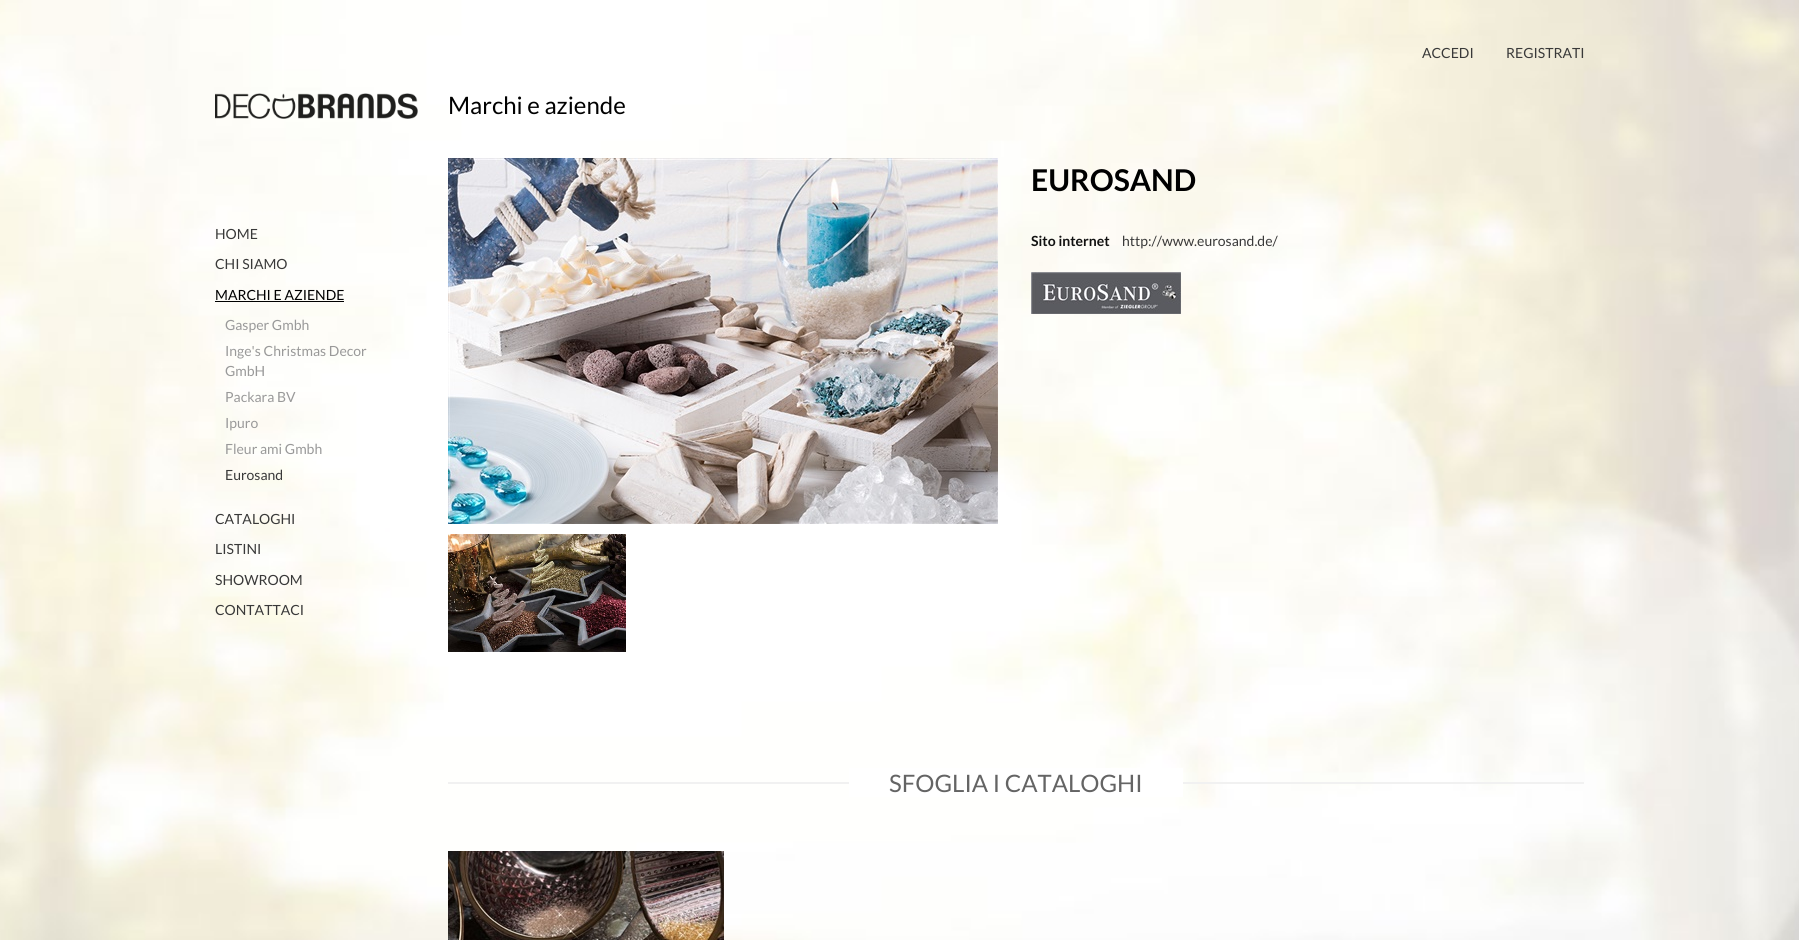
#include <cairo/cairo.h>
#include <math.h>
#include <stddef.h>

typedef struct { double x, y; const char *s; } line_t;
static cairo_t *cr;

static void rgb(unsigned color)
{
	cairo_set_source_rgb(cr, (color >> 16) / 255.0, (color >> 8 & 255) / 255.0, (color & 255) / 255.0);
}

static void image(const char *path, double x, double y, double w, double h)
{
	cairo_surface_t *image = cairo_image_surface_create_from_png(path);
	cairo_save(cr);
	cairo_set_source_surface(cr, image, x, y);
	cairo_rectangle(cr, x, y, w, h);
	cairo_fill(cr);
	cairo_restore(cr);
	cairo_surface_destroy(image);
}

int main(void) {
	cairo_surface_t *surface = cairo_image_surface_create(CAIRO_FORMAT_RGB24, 1799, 940);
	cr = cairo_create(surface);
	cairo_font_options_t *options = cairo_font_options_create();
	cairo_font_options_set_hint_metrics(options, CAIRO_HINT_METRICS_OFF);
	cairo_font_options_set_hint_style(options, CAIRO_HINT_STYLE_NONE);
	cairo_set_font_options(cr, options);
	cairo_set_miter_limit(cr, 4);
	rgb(0xffffff);
	cairo_paint(cr);
	image("img/1.png", 0, 0, 1799, 940);
	image("img/2.png", 215, 93, 203, 26);
	rgb(0x000000);
	cairo_rectangle(cr, 215, 301, 129, 1);
	cairo_fill(cr);
	image("img/3.png", 448, 158, 550, 366);
	image("img/4.png", 448, 534, 178, 118);
	image("img/5.png", 1031, 272, 150, 42);
	rgb(0xf1f1f1);
	cairo_rectangle(cr, 448, 782, 1136, 2);
	cairo_fill(cr);
	rgb(0xffffff);
	cairo_rectangle(cr, 849, 768, 334, 29);
	cairo_fill(cr);
	image("img/6.png", 448, 851, 276, 89);
	cairo_select_font_face(cr, "Lato", CAIRO_FONT_SLANT_NORMAL, CAIRO_FONT_WEIGHT_NORMAL);
	cairo_set_font_size(cr, 14);
	rgb(0x393939);
	cairo_move_to(cr, 215, 239);
	cairo_show_text(cr, "HOME");
	cairo_move_to(cr, 215, 269);
	cairo_show_text(cr, "CHI SIAMO");
	rgb(0x000000);
	cairo_move_to(cr, 215, 300);
	cairo_show_text(cr, "MARCHI E AZIENDE");
	rgb(0x999999);
	{
		static const line_t items[] = {
			{225, 330, "Gasper Gmbh"},
			{225, 356, "Inge's Christmas Decor"},
			{225, 376, "GmbH"},
			{225, 402, "Packara BV"},
			{225, 428, "Ipuro"},
			{225, 454, "Fleur ami Gmbh"},
		};
		for (size_t i = 0; i < sizeof items / sizeof *items; i++) {
			cairo_move_to(cr, items[i].x, items[i].y);
			cairo_show_text(cr, items[i].s);
		}
	}
	rgb(0x393939);
	{
		static const line_t items[] = {
			{225, 480, "Eurosand"},
			{215, 524, "CATALOGHI"},
			{215, 554, "LISTINI"},
			{215, 585, "SHOWROOM"},
			{215, 615, "CONTATTACI"},
			{1422, 58, "ACCEDI"},
			{1506, 58, "REGISTRATI"},
		};
		for (size_t i = 0; i < sizeof items / sizeof *items; i++) {
			cairo_move_to(cr, items[i].x, items[i].y);
			cairo_show_text(cr, items[i].s);
		}
	}
	cairo_set_font_size(cr, 24);
	rgb(0x000000);
	cairo_move_to(cr, 448, 114);
	cairo_show_text(cr, "Marchi e aziende");
	cairo_select_font_face(cr, "Lato", CAIRO_FONT_SLANT_NORMAL, CAIRO_FONT_WEIGHT_BOLD);
	cairo_set_font_size(cr, 30);
	cairo_move_to(cr, 1031, 191);
	cairo_show_text(cr, "EUROSAND");
	cairo_set_font_size(cr, 14);
	rgb(0x111111);
	cairo_move_to(cr, 1031, 246);
	cairo_show_text(cr, "Sito internet");
	cairo_select_font_face(cr, "Lato", CAIRO_FONT_SLANT_NORMAL, CAIRO_FONT_WEIGHT_NORMAL);
	rgb(0x393939);
	cairo_move_to(cr, 1122, 246);
	cairo_show_text(cr, "http://www.eurosand.de/");
	cairo_set_font_size(cr, 24);
	rgb(0x646464);
	cairo_move_to(cr, 889, 792);
	cairo_show_text(cr, "SFOGLIA I CATALOGHI");
	cairo_surface_write_to_png(surface, "page.png");
	cairo_font_options_destroy(options);
	cairo_destroy(cr);
	cairo_surface_destroy(surface);
	return 0;
}
